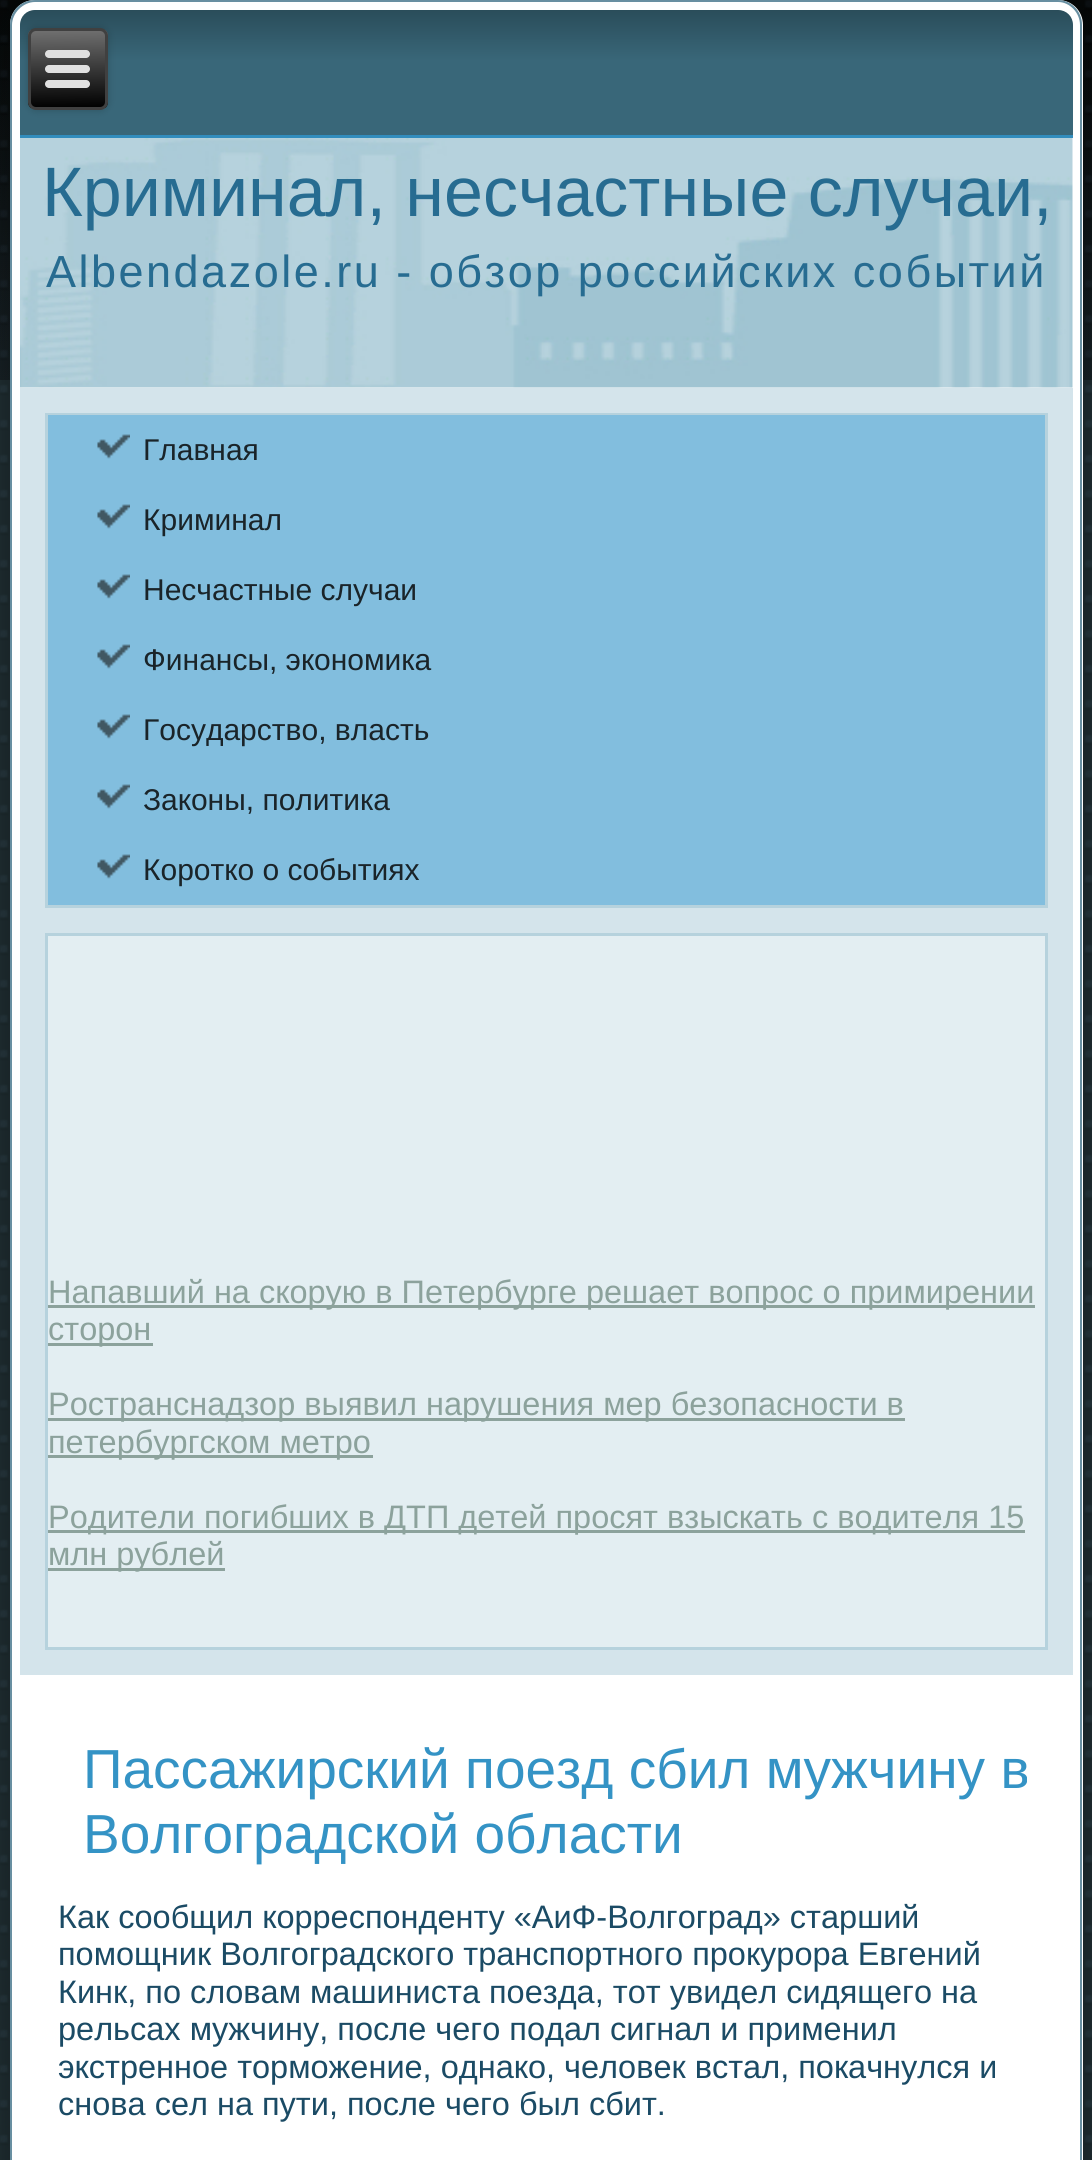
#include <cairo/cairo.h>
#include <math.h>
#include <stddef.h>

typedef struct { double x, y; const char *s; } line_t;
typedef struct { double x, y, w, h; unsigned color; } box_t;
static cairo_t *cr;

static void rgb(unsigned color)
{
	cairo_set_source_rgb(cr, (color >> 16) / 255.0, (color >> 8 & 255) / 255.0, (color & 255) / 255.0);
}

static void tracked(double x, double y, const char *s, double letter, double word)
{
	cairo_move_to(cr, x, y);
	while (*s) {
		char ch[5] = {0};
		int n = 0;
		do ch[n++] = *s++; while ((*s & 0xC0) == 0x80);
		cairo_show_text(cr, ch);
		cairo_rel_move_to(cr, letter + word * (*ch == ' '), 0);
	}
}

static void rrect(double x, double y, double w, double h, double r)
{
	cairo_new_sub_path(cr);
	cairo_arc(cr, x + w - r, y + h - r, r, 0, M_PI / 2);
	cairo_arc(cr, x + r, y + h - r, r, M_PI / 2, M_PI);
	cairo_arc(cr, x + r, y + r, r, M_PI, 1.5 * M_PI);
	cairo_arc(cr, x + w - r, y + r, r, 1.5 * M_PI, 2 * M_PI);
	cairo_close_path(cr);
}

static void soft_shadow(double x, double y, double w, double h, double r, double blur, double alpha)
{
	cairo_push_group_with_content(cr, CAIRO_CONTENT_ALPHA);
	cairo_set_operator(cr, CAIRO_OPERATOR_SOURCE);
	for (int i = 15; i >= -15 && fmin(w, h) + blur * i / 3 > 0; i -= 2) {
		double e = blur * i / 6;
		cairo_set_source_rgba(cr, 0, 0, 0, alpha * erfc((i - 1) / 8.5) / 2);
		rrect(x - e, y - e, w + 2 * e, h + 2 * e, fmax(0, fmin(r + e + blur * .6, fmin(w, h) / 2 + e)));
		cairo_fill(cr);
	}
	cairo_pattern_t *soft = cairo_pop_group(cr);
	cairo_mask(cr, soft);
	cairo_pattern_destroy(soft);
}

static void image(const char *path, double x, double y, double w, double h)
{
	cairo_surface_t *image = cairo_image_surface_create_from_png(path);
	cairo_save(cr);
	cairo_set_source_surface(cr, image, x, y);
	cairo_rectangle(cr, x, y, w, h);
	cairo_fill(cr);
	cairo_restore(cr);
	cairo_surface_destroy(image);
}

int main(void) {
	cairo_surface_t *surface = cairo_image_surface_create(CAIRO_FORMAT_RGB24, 1092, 2160);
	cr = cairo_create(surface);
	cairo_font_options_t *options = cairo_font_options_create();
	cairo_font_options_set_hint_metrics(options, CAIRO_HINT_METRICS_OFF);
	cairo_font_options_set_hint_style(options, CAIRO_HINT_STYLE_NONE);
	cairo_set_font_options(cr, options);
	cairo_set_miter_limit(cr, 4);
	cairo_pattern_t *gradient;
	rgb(0x212f35);
	cairo_paint(cr);
	image("img/1.png", 0, 0, 1092, 2160);
	rgb(0x000000);
	soft_shadow(0, -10, 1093, 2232, 35, 9, 0.2);
	rgb(0xffffff);
	cairo_new_path(cr);
	cairo_move_to(cr, 35, 0);
	cairo_line_to(cr, 1058, 0);
	cairo_curve_to(cr, 1072, 0, 1083, 11, 1083, 25);
	cairo_line_to(cr, 1083, 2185);
	cairo_line_to(cr, 10, 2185);
	cairo_line_to(cr, 10, 25);
	cairo_curve_to(cr, 10, 11, 21, 0, 35, 0);
	cairo_close_path(cr);
	cairo_fill(cr);
	rgb(0x688fa1);
	cairo_set_fill_rule(cr, CAIRO_FILL_RULE_EVEN_ODD);
	cairo_new_path(cr);
	cairo_move_to(cr, 35, 0);
	cairo_line_to(cr, 1058, 0);
	cairo_curve_to(cr, 1071, 0, 1082, 11, 1082, 25);
	cairo_line_to(cr, 1082, 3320);
	cairo_line_to(cr, 10, 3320);
	cairo_line_to(cr, 10, 25);
	cairo_curve_to(cr, 10, 11, 21, 0, 35, 0);
	cairo_close_path(cr);
	cairo_move_to(cr, 35, 2);
	cairo_line_to(cr, 1058, 2);
	cairo_curve_to(cr, 1070, 2, 1080, 13, 1080, 25);
	cairo_line_to(cr, 1080, 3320);
	cairo_line_to(cr, 12, 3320);
	cairo_line_to(cr, 12, 25);
	cairo_curve_to(cr, 12, 13, 23, 2, 35, 2);
	cairo_close_path(cr);
	cairo_fill(cr);
	gradient = cairo_pattern_create_linear(546, 10, 546, 138);
	cairo_pattern_add_color_stop_rgba(gradient, 0, 0.165, 0.302, 0.353, 1);
	cairo_pattern_add_color_stop_rgba(gradient, 0.4, 0.224, 0.404, 0.475, 1);
	cairo_pattern_add_color_stop_rgba(gradient, 1, 0.224, 0.404, 0.475, 1);
	cairo_set_source(cr, gradient);
	cairo_pattern_destroy(gradient);
	cairo_new_path(cr);
	cairo_move_to(cr, 35, 10);
	cairo_line_to(cr, 1058, 10);
	cairo_curve_to(cr, 1066.5, 10, 1073, 16.5, 1073, 25);
	cairo_line_to(cr, 1073, 138);
	cairo_line_to(cr, 20, 138);
	cairo_line_to(cr, 20, 25);
	cairo_curve_to(cr, 20, 16.5, 26.5, 10, 35, 10);
	cairo_close_path(cr);
	cairo_fill(cr);
	rgb(0x328dbd);
	cairo_rectangle(cr, 20, 135, 1053, 3);
	cairo_fill(cr);
	rgb(0x000000);
	soft_shadow(28, 28, 80, 82, 8, 4, 0.2);
	cairo_save(cr);
	cairo_set_fill_rule(cr, CAIRO_FILL_RULE_WINDING);
	rrect(28, 28, 80, 82, 8);
	cairo_clip(cr);
	gradient = cairo_pattern_create_linear(67, 30, 68, 108);
	cairo_pattern_add_color_stop_rgba(gradient, 0, 0.439, 0.439, 0.439, 1);
	cairo_pattern_add_color_stop_rgba(gradient, 1, 0, 0, 0, 1);
	cairo_set_source(cr, gradient);
	cairo_pattern_destroy(gradient);
	cairo_rectangle(cr, 28, 30, 80, 78);
	cairo_fill(cr);
	cairo_restore(cr);
	rrect(29.5, 29.5, 77, 79, 6.5);
	rgb(0x404040);
	cairo_set_line_width(cr, 3);
	cairo_stroke(cr);
	rgb(0xe0e0e0);
	rrect(45, 50, 45, 8, 4);
	cairo_fill(cr);
	rrect(45, 65, 45, 8, 4);
	cairo_fill(cr);
	rrect(45, 80, 45, 8, 4);
	cairo_fill(cr);
	image("img/2.png", 20, 138, 1053, 250);
	rgb(0xd4e4eb);
	cairo_rectangle(cr, 20, 388, 1053, 1287);
	cairo_fill(cr);
	cairo_rectangle(cr, 46.5, 414.5, 1000, 492);
	rgb(0xb6d2dd);
	cairo_stroke(cr);
	rgb(0x82bede);
	cairo_rectangle(cr, 48, 415, 997, 490);
	cairo_fill(cr);
	image("img/3.png", 97, 434, 33, 25);
	image("img/3.png", 97, 504, 33, 25);
	image("img/4.png", 97, 574, 33, 25);
	image("img/3.png", 97, 644, 33, 25);
	image("img/3.png", 97, 714, 33, 25);
	image("img/3.png", 97, 784, 33, 25);
	image("img/3.png", 97, 854, 33, 25);
	rgb(0xe3eef2);
	cairo_rectangle(cr, 46.5, 934.5, 1000, 714);
	cairo_fill_preserve(cr);
	rgb(0xb6d2dd);
	cairo_stroke(cr);
	{
		static const box_t items[] = {
			{48, 1305, 987, 3, 0x8ca29c},
			{48, 1343, 105, 3, 0x8ca29c},
			{48, 1418, 857, 3, 0x8ca29c},
			{48, 1455, 325, 3, 0x8ca29c},
			{48, 1530, 977, 3, 0x8ca29c},
			{48, 1568, 177, 3, 0x8ca29c},
		};
		for (size_t i = 0; i < sizeof items / sizeof *items; i++) {
			rgb(items[i].color);
			cairo_rectangle(cr, items[i].x, items[i].y, items[i].w, items[i].h);
			cairo_fill(cr);
		}
	}
	cairo_select_font_face(cr, "Liberation Sans", CAIRO_FONT_SLANT_NORMAL, CAIRO_FONT_WEIGHT_NORMAL);
	cairo_set_font_size(cr, 70);
	rgb(0x276c91);
	cairo_move_to(cr, 42, 216);
	cairo_show_text(cr, "Криминал, несчастные случаи,");
	cairo_set_font_size(cr, 45);
	tracked(46, 287, "Albendazole.ru - обзор российских событий", 2.5, 0);
	cairo_set_font_size(cr, 30);
	rgb(0x1a2429);
	{
		static const line_t items[] = {
			{143, 460, "Главная"},
			{143, 530, "Криминал"},
			{143, 600, "Несчастные случаи"},
			{143, 670, "Финансы, экономика"},
			{143, 740, "Государство, власть"},
			{143, 810, "Законы, политика"},
			{143, 880, "Коротко о событиях"},
		};
		for (size_t i = 0; i < sizeof items / sizeof *items; i++) {
			cairo_move_to(cr, items[i].x, items[i].y);
			cairo_show_text(cr, items[i].s);
		}
	}
	cairo_set_font_size(cr, 32.5);
	rgb(0x8ca29c);
	{
		static const line_t items[] = {
			{48, 1303, "Напавший на скорую в Петербурге решает вопрос о примирении"},
			{48, 1340, "сторон"},
			{48, 1415, "Ространснадзор выявил нарушения мер безопасности в"},
			{48, 1453, "петербургском метро"},
			{48, 1528, "Родители погибших в ДТП детей просят взыскать с водителя 15"},
			{48, 1565, "млн рублей"},
		};
		for (size_t i = 0; i < sizeof items / sizeof *items; i++) {
			cairo_move_to(cr, items[i].x, items[i].y);
			cairo_show_text(cr, items[i].s);
		}
	}
	cairo_set_font_size(cr, 55);
	rgb(0x3493c5);
	cairo_move_to(cr, 83, 1788);
	cairo_show_text(cr, "Пассажирский поезд сбил мужчину в");
	cairo_move_to(cr, 83, 1853);
	cairo_show_text(cr, "Волгоградской области");
	cairo_set_font_size(cr, 32.5);
	rgb(0x1b4b65);
	{
		static const line_t items[] = {
			{58, 1928, "Как сообщил корреспонденту «АиФ-Волгоград» старший"},
			{58, 1965, "помощник Волгоградского транспортного прокурора Евгений"},
			{58, 2003, "Кинк, по словам машиниста поезда, тот увидел сидящего на"},
			{58, 2040, "рельсах мужчину, после чего подал сигнал и применил"},
			{58, 2078, "экстренное торможение, однако, человек встал, покачнулся и"},
			{58, 2115, "снова сел на пути, после чего был сбит."},
		};
		for (size_t i = 0; i < sizeof items / sizeof *items; i++) {
			cairo_move_to(cr, items[i].x, items[i].y);
			cairo_show_text(cr, items[i].s);
		}
	}
	cairo_surface_write_to_png(surface, "page.png");
	cairo_font_options_destroy(options);
	cairo_destroy(cr);
	cairo_surface_destroy(surface);
	return 0;
}
